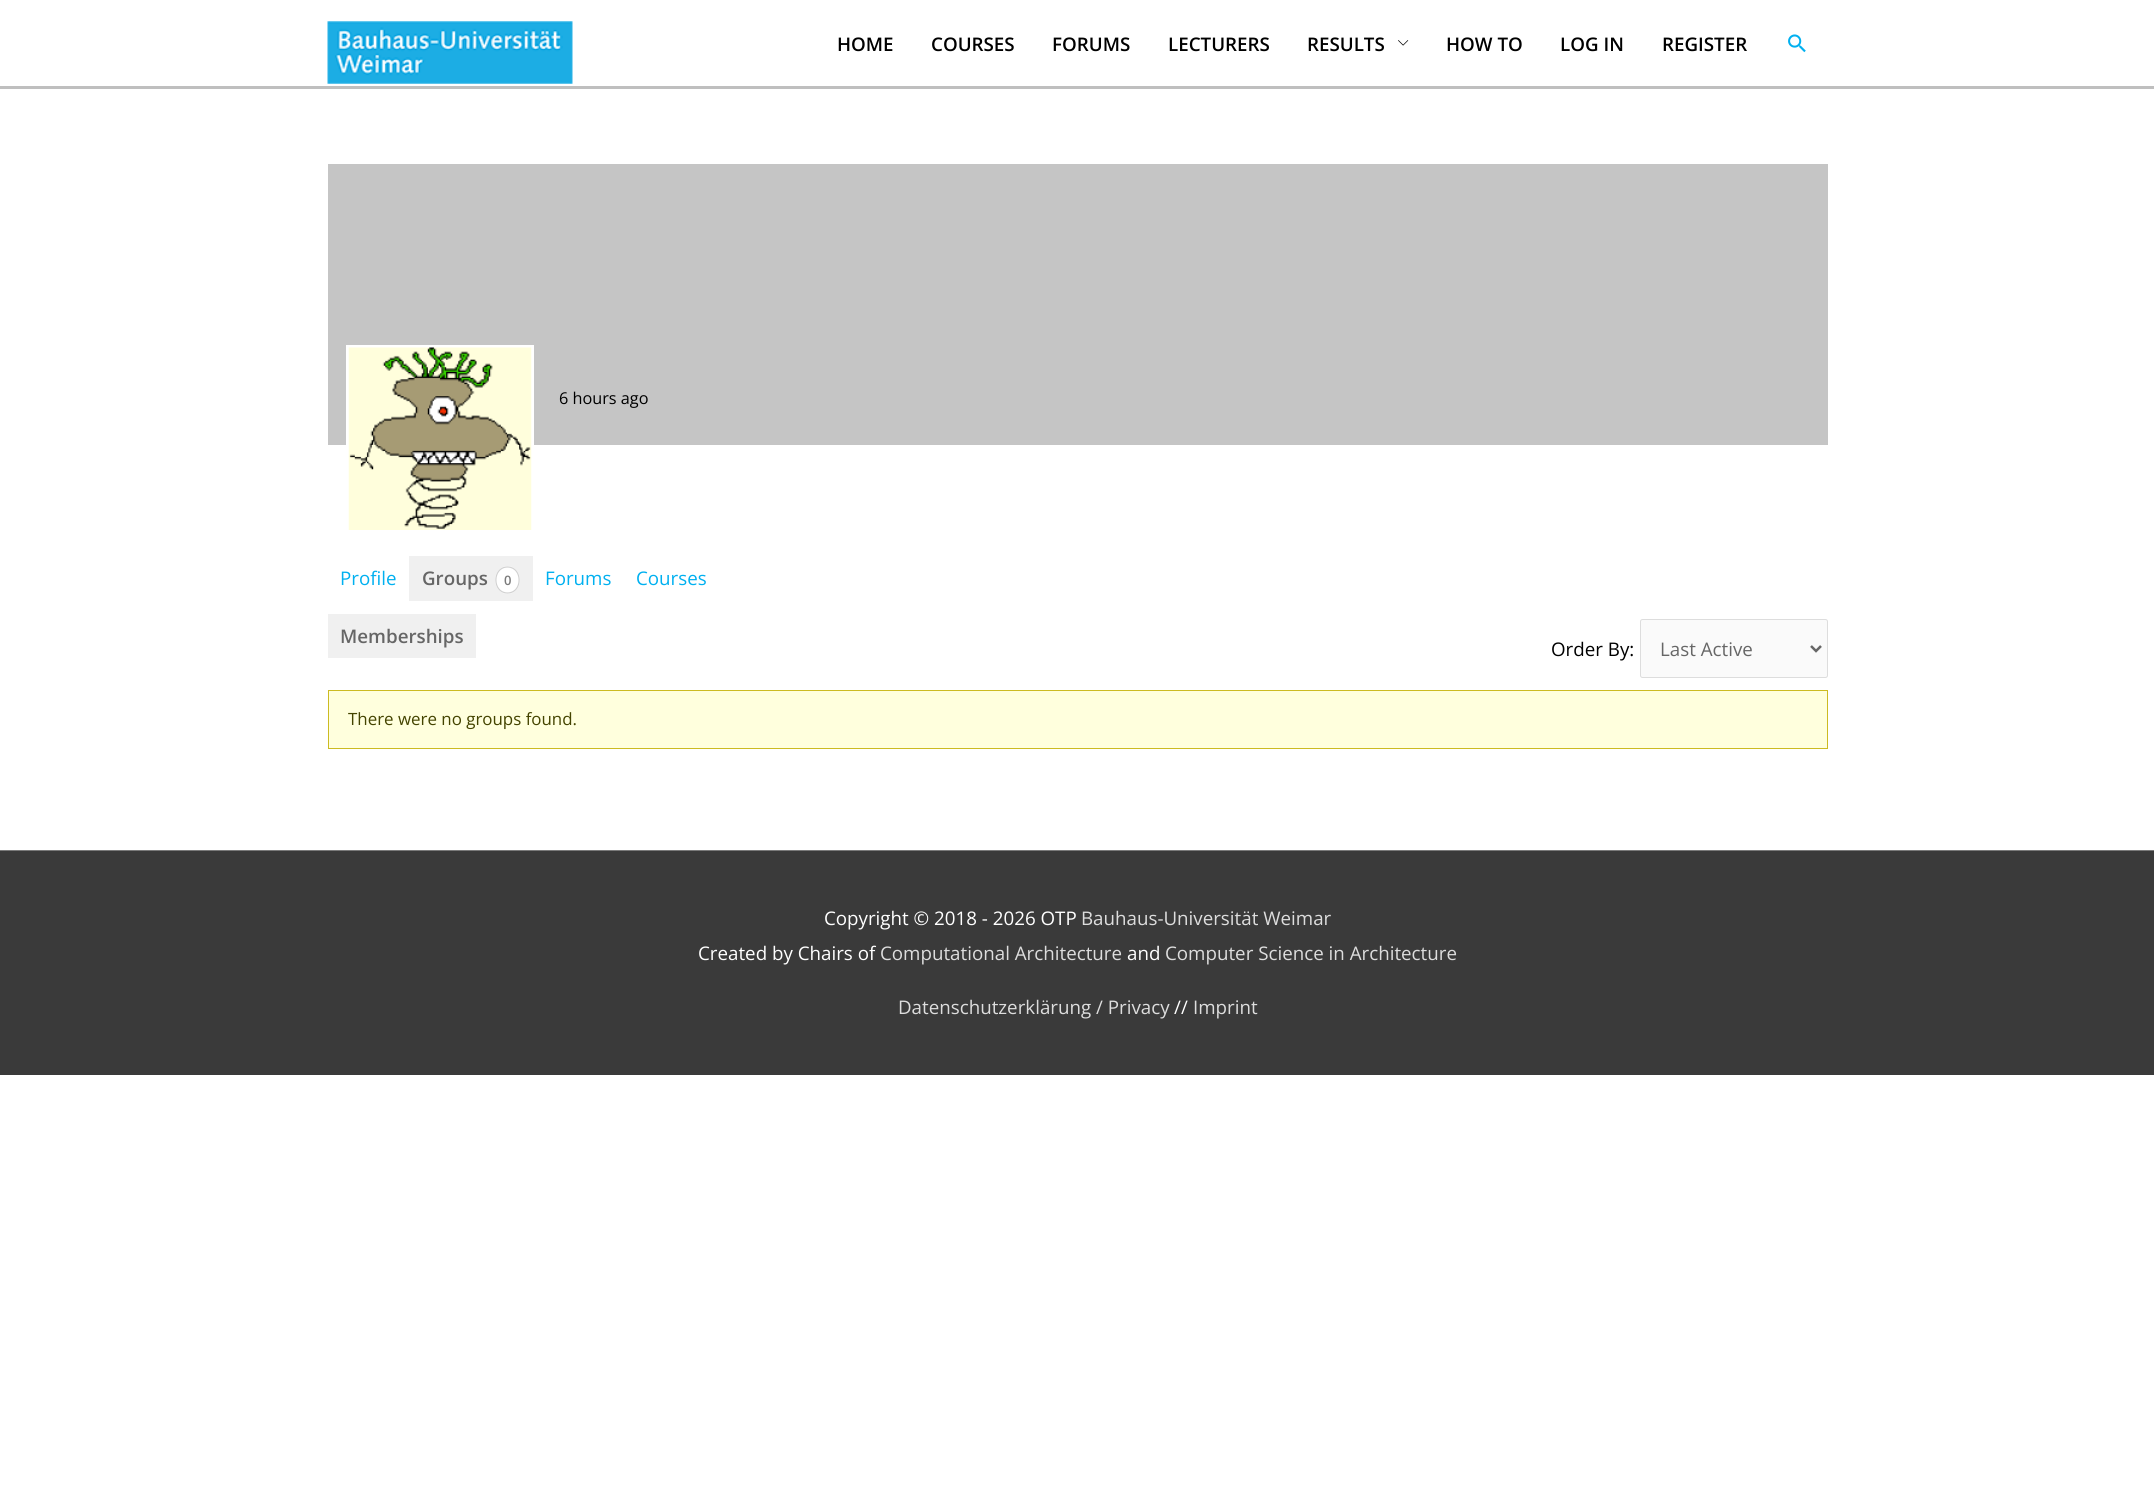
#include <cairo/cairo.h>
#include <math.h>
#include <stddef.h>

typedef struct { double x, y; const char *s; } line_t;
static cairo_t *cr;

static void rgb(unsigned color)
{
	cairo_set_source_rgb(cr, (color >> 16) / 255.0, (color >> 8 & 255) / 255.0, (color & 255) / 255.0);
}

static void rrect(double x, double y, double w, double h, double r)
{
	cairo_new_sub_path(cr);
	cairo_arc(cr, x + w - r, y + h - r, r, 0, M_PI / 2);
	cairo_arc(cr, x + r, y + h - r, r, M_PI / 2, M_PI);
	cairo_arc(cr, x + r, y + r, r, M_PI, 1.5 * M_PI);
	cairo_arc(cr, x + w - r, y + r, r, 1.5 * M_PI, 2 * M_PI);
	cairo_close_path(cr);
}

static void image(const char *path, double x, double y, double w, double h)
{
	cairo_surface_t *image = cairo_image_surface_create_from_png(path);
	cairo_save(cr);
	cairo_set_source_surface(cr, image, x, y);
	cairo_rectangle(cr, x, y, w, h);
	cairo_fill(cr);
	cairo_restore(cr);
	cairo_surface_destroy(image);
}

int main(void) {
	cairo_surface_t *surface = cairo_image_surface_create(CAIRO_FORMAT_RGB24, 2154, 1486);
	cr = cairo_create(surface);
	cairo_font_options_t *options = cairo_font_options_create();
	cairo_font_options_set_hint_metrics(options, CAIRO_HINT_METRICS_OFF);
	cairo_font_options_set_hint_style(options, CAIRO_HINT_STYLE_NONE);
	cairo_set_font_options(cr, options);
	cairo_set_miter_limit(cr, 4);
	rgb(0xffffff);
	cairo_paint(cr);
	rgb(0xbfbfbf);
	cairo_rectangle(cr, 0, 86, 2154, 3);
	cairo_fill(cr);
	image("img/1.png", 327, 21, 246, 63);
	image("img/2.png", 1398, 40, 11, 6);
	image("img/3.png", 1788, 34, 18, 19);
	rgb(0xc5c5c5);
	cairo_rectangle(cr, 328, 164, 1500, 281);
	cairo_fill(cr);
	cairo_rectangle(cr, 347.5, 346.5, 185, 185);
	rgb(0xffffff);
	cairo_set_line_width(cr, 3);
	cairo_stroke(cr);
	image("img/4.png", 348, 347, 184, 183);
	rgb(0xf0f0f0);
	cairo_rectangle(cr, 409, 556, 124, 45);
	cairo_fill(cr);
	rgb(0xffffff);
	cairo_new_path(cr);
	cairo_move_to(cr, 507.5, 566);
	cairo_curve_to(cr, 514.5, 566, 520, 572.5, 520, 580);
	cairo_curve_to(cr, 520, 587.5, 514.5, 594, 507.5, 594);
	cairo_curve_to(cr, 500.5, 594, 495, 587.5, 495, 580);
	cairo_curve_to(cr, 495, 572.5, 500.5, 566, 507.5, 566);
	cairo_close_path(cr);
	cairo_fill(cr);
	cairo_new_path(cr);
	cairo_move_to(cr, 507.5, 567);
	cairo_curve_to(cr, 523, 567, 523, 593, 507.5, 593);
	cairo_curve_to(cr, 492, 593, 492, 567, 507.5, 567);
	cairo_close_path(cr);
	rgb(0xd1d1d1);
	cairo_set_line_width(cr, 1.2);
	cairo_stroke(cr);
	rgb(0xf0f0f0);
	cairo_rectangle(cr, 328, 614, 148, 44);
	cairo_fill(cr);
	rgb(0xfafafa);
	rrect(1640.5, 619.5, 187, 58, 2);
	cairo_fill_preserve(cr);
	rgb(0xdddddd);
	cairo_set_line_width(cr, 1);
	cairo_stroke(cr);
	cairo_new_path(cr);
	cairo_move_to(cr, 1811, 646);
	cairo_line_to(cr, 1816, 651);
	cairo_line_to(cr, 1821, 646);
	rgb(0x666666);
	cairo_set_line_width(cr, 2.5);
	cairo_stroke(cr);
	rgb(0xffffdd);
	cairo_rectangle(cr, 328.5, 690.5, 1499, 58);
	cairo_fill_preserve(cr);
	rgb(0xccbb22);
	cairo_set_line_width(cr, 1);
	cairo_stroke(cr);
	rgb(0x7a7a7a);
	cairo_rectangle(cr, 0, 850, 2154, 1);
	cairo_fill(cr);
	rgb(0x3a3a3a);
	cairo_rectangle(cr, 0, 851, 2154, 224);
	cairo_fill(cr);
	cairo_select_font_face(cr, "Open Sans SemiBold", CAIRO_FONT_SLANT_NORMAL, CAIRO_FONT_WEIGHT_NORMAL);
	cairo_set_font_size(cr, 18.75);
	rgb(0x000000);
	{
		static const line_t items[] = {
			{837, 51, "HOME"},
			{931, 51, "COURSES"},
			{1052, 51, "FORUMS"},
			{1168, 51, "LECTURERS"},
			{1307, 51, "RESULTS"},
			{1446, 51, "HOW TO"},
			{1560, 51, "LOG IN"},
			{1662, 51, "REGISTER"},
		};
		for (size_t i = 0; i < sizeof items / sizeof *items; i++) {
			cairo_move_to(cr, items[i].x, items[i].y);
			cairo_show_text(cr, items[i].s);
		}
	}
	cairo_select_font_face(cr, "Open Sans", CAIRO_FONT_SLANT_NORMAL, CAIRO_FONT_WEIGHT_NORMAL);
	cairo_set_font_size(cr, 16.25);
	cairo_move_to(cr, 559, 404);
	cairo_show_text(cr, "6 hours ago");
	cairo_set_font_size(cr, 18.75);
	rgb(0x00b0f0);
	cairo_move_to(cr, 340, 585);
	cairo_show_text(cr, "Profile");
	cairo_select_font_face(cr, "Open Sans SemiBold", CAIRO_FONT_SLANT_NORMAL, CAIRO_FONT_WEIGHT_NORMAL);
	rgb(0x666666);
	cairo_move_to(cr, 422, 585);
	cairo_show_text(cr, "Groups");
	cairo_set_font_size(cr, 13);
	rgb(0x7b7b7b);
	cairo_move_to(cr, 504, 585);
	cairo_show_text(cr, "0");
	cairo_select_font_face(cr, "Open Sans", CAIRO_FONT_SLANT_NORMAL, CAIRO_FONT_WEIGHT_NORMAL);
	cairo_set_font_size(cr, 18.75);
	rgb(0x00b0f0);
	cairo_move_to(cr, 545, 585);
	cairo_show_text(cr, "Forums");
	cairo_move_to(cr, 636, 585);
	cairo_show_text(cr, "Courses");
	cairo_select_font_face(cr, "Open Sans SemiBold", CAIRO_FONT_SLANT_NORMAL, CAIRO_FONT_WEIGHT_NORMAL);
	rgb(0x666666);
	cairo_move_to(cr, 340, 643);
	cairo_show_text(cr, "Memberships");
	cairo_select_font_face(cr, "Open Sans", CAIRO_FONT_SLANT_NORMAL, CAIRO_FONT_WEIGHT_NORMAL);
	rgb(0x000000);
	cairo_move_to(cr, 1551, 656);
	cairo_show_text(cr, "Order By:");
	rgb(0x666666);
	cairo_move_to(cr, 1660, 656);
	cairo_show_text(cr, "Last Active");
	cairo_set_font_size(cr, 16.9);
	rgb(0x444400);
	cairo_move_to(cr, 348, 725);
	cairo_show_text(cr, "There were no groups found.");
	cairo_set_font_size(cr, 18.75);
	rgb(0xffffff);
	cairo_move_to(cr, 824, 925);
	cairo_show_text(cr, "Copyright © 2018 - 2026 OTP");
	rgb(0xdddddd);
	cairo_move_to(cr, 1081, 925);
	cairo_show_text(cr, "Bauhaus-Universität Weimar");
	rgb(0xffffff);
	cairo_move_to(cr, 698, 960);
	cairo_show_text(cr, "Created by Chairs of");
	rgb(0xdddddd);
	cairo_move_to(cr, 880, 960);
	cairo_show_text(cr, "Computational Architecture");
	rgb(0xffffff);
	cairo_move_to(cr, 1127, 960);
	cairo_show_text(cr, "and");
	rgb(0xdddddd);
	cairo_move_to(cr, 1165, 960);
	cairo_show_text(cr, "Computer Science in Architecture");
	cairo_move_to(cr, 898, 1014);
	cairo_show_text(cr, "Datenschutzerklärung / Privacy");
	rgb(0xffffff);
	cairo_move_to(cr, 1174, 1014);
	cairo_show_text(cr, "//");
	rgb(0xdddddd);
	cairo_move_to(cr, 1193, 1014);
	cairo_show_text(cr, "Imprint");
	cairo_surface_write_to_png(surface, "page.png");
	cairo_font_options_destroy(options);
	cairo_destroy(cr);
	cairo_surface_destroy(surface);
	return 0;
}
